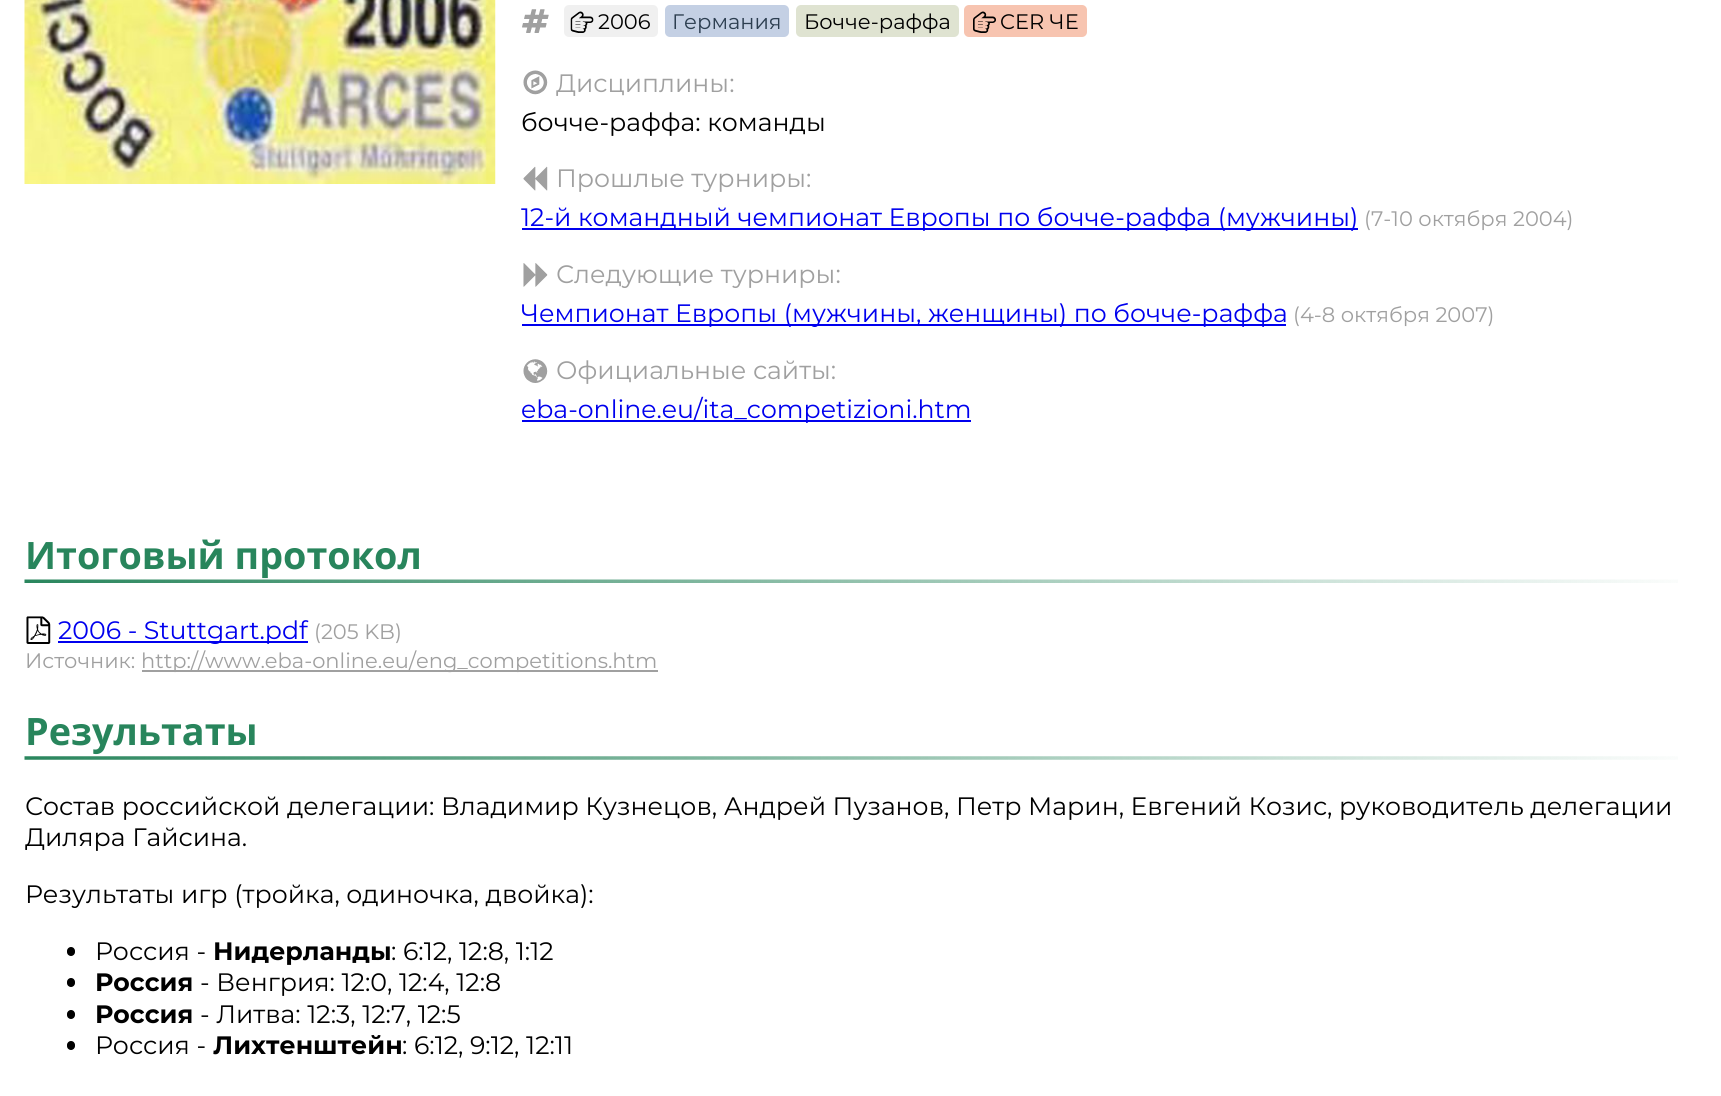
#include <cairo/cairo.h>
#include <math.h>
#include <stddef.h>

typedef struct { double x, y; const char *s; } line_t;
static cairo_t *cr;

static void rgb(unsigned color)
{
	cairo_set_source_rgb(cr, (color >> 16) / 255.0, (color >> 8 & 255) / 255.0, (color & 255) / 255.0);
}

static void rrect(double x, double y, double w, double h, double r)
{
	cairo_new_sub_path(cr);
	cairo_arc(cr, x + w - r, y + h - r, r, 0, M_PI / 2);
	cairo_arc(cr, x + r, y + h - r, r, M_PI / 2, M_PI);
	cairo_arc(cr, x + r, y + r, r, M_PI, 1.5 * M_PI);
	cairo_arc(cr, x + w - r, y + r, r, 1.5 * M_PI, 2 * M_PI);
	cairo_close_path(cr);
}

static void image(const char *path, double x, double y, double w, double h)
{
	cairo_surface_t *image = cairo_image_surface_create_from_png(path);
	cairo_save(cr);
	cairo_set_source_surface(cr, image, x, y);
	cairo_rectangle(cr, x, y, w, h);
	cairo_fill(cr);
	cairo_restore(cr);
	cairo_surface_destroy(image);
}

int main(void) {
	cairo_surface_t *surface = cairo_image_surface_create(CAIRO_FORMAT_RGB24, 1721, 1096);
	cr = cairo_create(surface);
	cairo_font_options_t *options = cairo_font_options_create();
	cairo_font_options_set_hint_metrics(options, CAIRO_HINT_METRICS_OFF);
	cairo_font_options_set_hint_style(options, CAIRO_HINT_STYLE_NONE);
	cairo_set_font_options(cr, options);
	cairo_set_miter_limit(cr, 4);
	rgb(0xffffff);
	cairo_paint(cr);
	image("img/1.png", 24, 0, 472, 184);
	image("img/2.png", 522, 9, 27, 24);
	rgb(0xf0f0f0);
	rrect(564, 5, 94, 32, 5);
	cairo_fill(cr);
	image("img/3.png", 570, 11, 24, 22);
	rgb(0xc4d0e4);
	rrect(665, 5, 124, 32, 5);
	cairo_fill(cr);
	rgb(0xdfe3d1);
	rrect(796, 5, 163, 32, 5);
	cairo_fill(cr);
	rgb(0xf7c4b0);
	rrect(964, 5, 123, 32, 5);
	cairo_fill(cr);
	image("img/4.png", 973, 11, 23, 22);
	image("img/5.png", 523, 70, 25, 25);
	image("img/6.png", 523, 166, 25, 25);
	rgb(0x0000ee);
	cairo_rectangle(cr, 522, 228, 836, 2);
	cairo_fill(cr);
	image("img/7.png", 523, 263, 25, 24);
	cairo_rectangle(cr, 522, 324, 764, 2);
	cairo_fill(cr);
	image("img/8.png", 523, 359, 25, 24);
	cairo_rectangle(cr, 522, 420, 449, 2);
	cairo_fill(cr);
	image("img/9.png", 24, 579, 1654, 4);
	image("img/10.png", 26, 616, 25, 28);
	cairo_rectangle(cr, 58, 641, 250, 2);
	cairo_fill(cr);
	rgb(0xa0a0a0);
	cairo_rectangle(cr, 142, 670, 516, 2);
	cairo_fill(cr);
	image("img/11.png", 24, 756, 1654, 4);
	rgb(0x000000);
	rrect(67, 947, 8, 9, 4);
	cairo_fill(cr);
	rrect(67, 978, 8, 9, 4);
	cairo_fill(cr);
	rrect(67, 1010, 8, 9, 4);
	cairo_fill(cr);
	rrect(67, 1041, 8, 9, 4);
	cairo_fill(cr);
	cairo_select_font_face(cr, "Montserrat", CAIRO_FONT_SLANT_NORMAL, CAIRO_FONT_WEIGHT_NORMAL);
	cairo_set_font_size(cr, 21);
	cairo_move_to(cr, 598, 29);
	cairo_show_text(cr, "2006");
	rgb(0x2c3e50);
	cairo_move_to(cr, 672, 29);
	cairo_show_text(cr, "Германия");
	rgb(0x000000);
	cairo_move_to(cr, 804, 29);
	cairo_show_text(cr, "Бочче-раффа");
	cairo_move_to(cr, 1000, 29);
	cairo_show_text(cr, "CER ЧЕ");
	cairo_set_font_size(cr, 25.2);
	rgb(0xa0a0a0);
	cairo_move_to(cr, 556, 92);
	cairo_show_text(cr, "Дисциплины:");
	rgb(0x000000);
	cairo_move_to(cr, 521, 131);
	cairo_show_text(cr, "бочче-раффа: команды");
	rgb(0xa0a0a0);
	cairo_move_to(cr, 556, 187);
	cairo_show_text(cr, "Прошлые турниры:");
	rgb(0x0000ee);
	cairo_move_to(cr, 521, 226);
	cairo_show_text(cr, "12-й командный чемпионат Европы по бочче-раффа (мужчины)");
	cairo_set_font_size(cr, 21);
	rgb(0xa0a0a0);
	cairo_move_to(cr, 1364, 226);
	cairo_show_text(cr, "(7-10 октября 2004)");
	cairo_set_font_size(cr, 25.2);
	cairo_move_to(cr, 556, 283);
	cairo_show_text(cr, "Следующие турниры:");
	rgb(0x0000ee);
	cairo_move_to(cr, 521, 322);
	cairo_show_text(cr, "Чемпионат Европы (мужчины, женщины) по бочче-раффа");
	cairo_set_font_size(cr, 21);
	rgb(0xa0a0a0);
	cairo_move_to(cr, 1293, 322);
	cairo_show_text(cr, "(4-8 октября 2007)");
	cairo_set_font_size(cr, 25.2);
	cairo_move_to(cr, 556, 379);
	cairo_show_text(cr, "Официальные сайты:");
	rgb(0x0000ee);
	cairo_move_to(cr, 521, 418);
	cairo_show_text(cr, "eba-online.eu/ita_competizioni.htm");
	cairo_select_font_face(cr, "Open Sans", CAIRO_FONT_SLANT_NORMAL, CAIRO_FONT_WEIGHT_BOLD);
	cairo_set_font_size(cr, 37.75);
	rgb(0x28855c);
	cairo_move_to(cr, 25, 569);
	cairo_show_text(cr, "Итоговый протокол");
	cairo_select_font_face(cr, "Montserrat", CAIRO_FONT_SLANT_NORMAL, CAIRO_FONT_WEIGHT_NORMAL);
	cairo_set_font_size(cr, 25.2);
	rgb(0x0000ee);
	cairo_move_to(cr, 58, 639);
	cairo_show_text(cr, "2006 - Stuttgart.pdf");
	cairo_set_font_size(cr, 21);
	rgb(0xa0a0a0);
	{
		static const line_t items[] = {
			{314, 639, "(205 KB)"},
			{25, 668, "Источник:"},
			{141, 668, "http://www.eba-online.eu/eng_competitions.htm"},
		};
		for (size_t i = 0; i < sizeof items / sizeof *items; i++) {
			cairo_move_to(cr, items[i].x, items[i].y);
			cairo_show_text(cr, items[i].s);
		}
	}
	cairo_select_font_face(cr, "Open Sans", CAIRO_FONT_SLANT_NORMAL, CAIRO_FONT_WEIGHT_BOLD);
	cairo_set_font_size(cr, 37.75);
	rgb(0x28855c);
	cairo_move_to(cr, 25, 745);
	cairo_show_text(cr, "Результаты");
	cairo_select_font_face(cr, "Montserrat", CAIRO_FONT_SLANT_NORMAL, CAIRO_FONT_WEIGHT_NORMAL);
	cairo_set_font_size(cr, 25.2);
	rgb(0x000000);
	{
		static const line_t items[] = {
			{25, 815, "Состав российской делегации: Владимир Кузнецов, Андрей Пузанов, Петр Марин, Евгений Козис, руководитель делегации"},
			{25, 846, "Диляра Гайсина."},
			{25, 903, "Результаты игр (тройка, одиночка, двойка):"},
			{95, 960, "Россия -"},
		};
		for (size_t i = 0; i < sizeof items / sizeof *items; i++) {
			cairo_move_to(cr, items[i].x, items[i].y);
			cairo_show_text(cr, items[i].s);
		}
	}
	cairo_select_font_face(cr, "Montserrat", CAIRO_FONT_SLANT_NORMAL, CAIRO_FONT_WEIGHT_BOLD);
	cairo_move_to(cr, 213, 960);
	cairo_show_text(cr, "Нидерланды");
	cairo_select_font_face(cr, "Montserrat", CAIRO_FONT_SLANT_NORMAL, CAIRO_FONT_WEIGHT_NORMAL);
	cairo_move_to(cr, 391, 960);
	cairo_show_text(cr, ": 6:12, 12:8, 1:12");
	cairo_select_font_face(cr, "Montserrat", CAIRO_FONT_SLANT_NORMAL, CAIRO_FONT_WEIGHT_BOLD);
	cairo_move_to(cr, 95, 991);
	cairo_show_text(cr, "Россия");
	cairo_select_font_face(cr, "Montserrat", CAIRO_FONT_SLANT_NORMAL, CAIRO_FONT_WEIGHT_NORMAL);
	cairo_move_to(cr, 200, 991);
	cairo_show_text(cr, "- Венгрия: 12:0, 12:4, 12:8");
	cairo_select_font_face(cr, "Montserrat", CAIRO_FONT_SLANT_NORMAL, CAIRO_FONT_WEIGHT_BOLD);
	cairo_move_to(cr, 95, 1023);
	cairo_show_text(cr, "Россия");
	cairo_select_font_face(cr, "Montserrat", CAIRO_FONT_SLANT_NORMAL, CAIRO_FONT_WEIGHT_NORMAL);
	cairo_move_to(cr, 200, 1023);
	cairo_show_text(cr, "- Литва: 12:3, 12:7, 12:5");
	cairo_move_to(cr, 95, 1054);
	cairo_show_text(cr, "Россия -");
	cairo_select_font_face(cr, "Montserrat", CAIRO_FONT_SLANT_NORMAL, CAIRO_FONT_WEIGHT_BOLD);
	cairo_move_to(cr, 213, 1054);
	cairo_show_text(cr, "Лихтенштейн");
	cairo_select_font_face(cr, "Montserrat", CAIRO_FONT_SLANT_NORMAL, CAIRO_FONT_WEIGHT_NORMAL);
	cairo_move_to(cr, 402, 1054);
	cairo_show_text(cr, ": 6:12, 9:12, 12:11");
	cairo_surface_write_to_png(surface, "page.png");
	cairo_font_options_destroy(options);
	cairo_destroy(cr);
	cairo_surface_destroy(surface);
	return 0;
}
